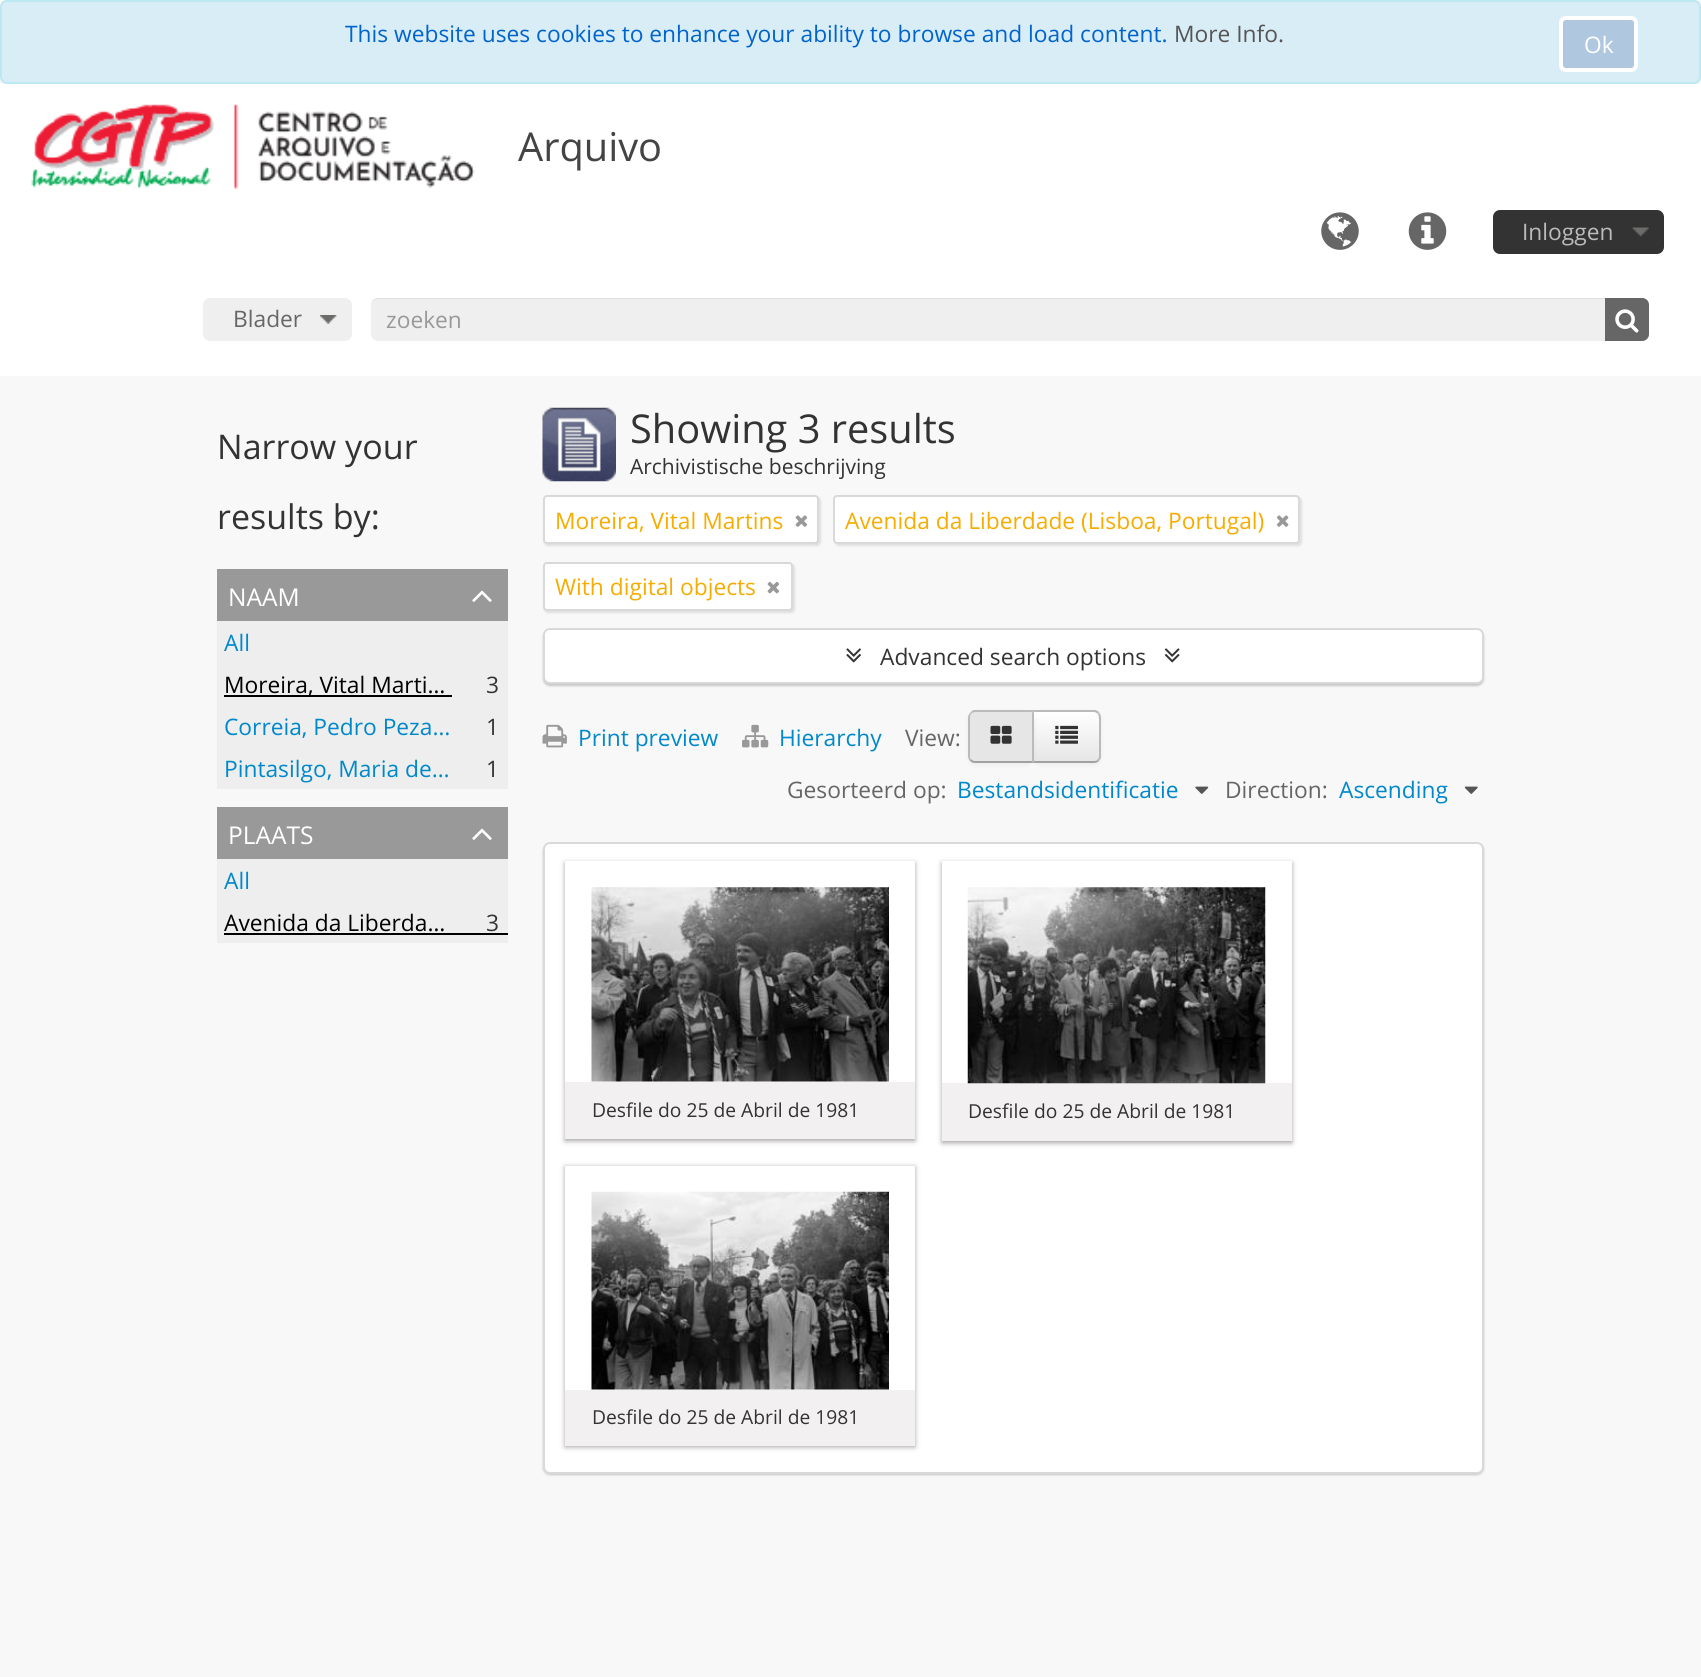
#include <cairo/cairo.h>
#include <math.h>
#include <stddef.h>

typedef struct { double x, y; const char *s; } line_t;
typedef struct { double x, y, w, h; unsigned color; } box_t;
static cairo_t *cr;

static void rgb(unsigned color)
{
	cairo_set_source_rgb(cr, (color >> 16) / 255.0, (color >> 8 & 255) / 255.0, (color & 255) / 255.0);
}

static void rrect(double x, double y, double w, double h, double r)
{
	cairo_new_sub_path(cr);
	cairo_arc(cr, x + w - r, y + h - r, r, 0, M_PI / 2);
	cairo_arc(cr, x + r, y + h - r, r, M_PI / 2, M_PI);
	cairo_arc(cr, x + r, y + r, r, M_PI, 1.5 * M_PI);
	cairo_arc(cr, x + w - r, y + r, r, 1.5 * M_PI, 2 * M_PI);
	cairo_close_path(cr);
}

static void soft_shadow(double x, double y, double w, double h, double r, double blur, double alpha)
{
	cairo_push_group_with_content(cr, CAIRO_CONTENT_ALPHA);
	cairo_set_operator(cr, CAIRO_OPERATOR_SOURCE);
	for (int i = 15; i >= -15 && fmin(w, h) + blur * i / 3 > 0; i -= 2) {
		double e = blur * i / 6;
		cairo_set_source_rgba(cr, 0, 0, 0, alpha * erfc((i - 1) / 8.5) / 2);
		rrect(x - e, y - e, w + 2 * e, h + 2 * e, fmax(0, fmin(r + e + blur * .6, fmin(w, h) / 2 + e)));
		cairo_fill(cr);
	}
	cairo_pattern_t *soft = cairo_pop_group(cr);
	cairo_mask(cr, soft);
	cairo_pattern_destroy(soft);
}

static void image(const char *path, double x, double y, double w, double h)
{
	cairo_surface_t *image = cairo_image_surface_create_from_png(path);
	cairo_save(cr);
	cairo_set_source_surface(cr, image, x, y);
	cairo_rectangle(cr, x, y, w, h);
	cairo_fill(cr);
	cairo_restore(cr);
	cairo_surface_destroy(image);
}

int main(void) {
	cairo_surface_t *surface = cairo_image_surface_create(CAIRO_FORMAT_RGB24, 1701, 1677);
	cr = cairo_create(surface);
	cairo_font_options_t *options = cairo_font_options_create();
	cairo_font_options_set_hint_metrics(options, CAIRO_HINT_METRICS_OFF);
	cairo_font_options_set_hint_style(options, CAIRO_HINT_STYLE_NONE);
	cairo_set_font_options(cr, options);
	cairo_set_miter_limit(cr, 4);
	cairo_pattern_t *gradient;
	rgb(0xf8f8f8);
	cairo_paint(cr);
	rgb(0xd9edf7);
	rrect(1, 1, 1699, 82, 6);
	cairo_fill_preserve(cr);
	rgb(0xbce8f1);
	cairo_stroke(cr);
	rgb(0xafc8df);
	rrect(1561, 18, 75, 52, 5);
	cairo_fill_preserve(cr);
	rgb(0xffffff);
	cairo_set_line_width(cr, 4);
	cairo_stroke(cr);
	cairo_rectangle(cr, 0, 84, 1701, 292);
	cairo_fill(cr);
	image("img/1.png", 31, 104, 444, 85);
	image("img/2.png", 1321, 212, 38, 38);
	image("img/3.png", 1408, 212, 39, 38);
	rgb(0x333333);
	rrect(1493, 210, 171, 44, 7);
	cairo_fill(cr);
	image("img/4.png", 1632, 227, 17, 10);
	rgb(0xefefef);
	rrect(203, 298, 149, 43, 7);
	cairo_fill(cr);
	image("img/5.png", 320, 315, 17, 9);
	rrect(371, 298, 1278, 43, 7);
	cairo_fill(cr);
	cairo_set_source_rgba(cr, 0, 0, 0, 0.07);
	cairo_new_path(cr);
	cairo_move_to(cr, 378, 299);
	cairo_line_to(cr, 1642, 299);
	cairo_curve_to(cr, 1645, 299, 1648, 302, 1648, 306);
	cairo_line_to(cr, 1648, 338);
	cairo_curve_to(cr, 1649, 337, 1649, 335, 1649, 334);
	cairo_line_to(cr, 1649, 305);
	cairo_curve_to(cr, 1649, 301, 1646, 298, 1642, 298);
	cairo_line_to(cr, 378, 298);
	cairo_curve_to(cr, 374, 298, 371, 301, 371, 305);
	cairo_line_to(cr, 371, 306);
	cairo_curve_to(cr, 371, 302, 374, 299, 378, 299);
	cairo_close_path(cr);
	cairo_fill(cr);
	rgb(0x666666);
	cairo_new_path(cr);
	cairo_move_to(cr, 1605, 298);
	cairo_line_to(cr, 1642, 298);
	cairo_curve_to(cr, 1646, 298, 1649, 301, 1649, 305);
	cairo_line_to(cr, 1649, 334);
	cairo_curve_to(cr, 1649, 338, 1646, 341, 1642, 341);
	cairo_line_to(cr, 1605, 341);
	cairo_close_path(cr);
	cairo_fill(cr);
	image("img/6.png", 1615, 309, 24, 24);
	rgb(0x999999);
	cairo_rectangle(cr, 217, 569, 291, 52);
	cairo_fill(cr);
	image("img/7.png", 472, 590, 20, 12);
	{
		static const box_t items[] = {
			{217, 621, 291, 168, 0xeeeeee},
			{224, 695, 228, 2, 0x000000},
			{217, 807, 291, 52, 0x999999},
		};
		for (size_t i = 0; i < sizeof items / sizeof *items; i++) {
			rgb(items[i].color);
			cairo_rectangle(cr, items[i].x, items[i].y, items[i].w, items[i].h);
			cairo_fill(cr);
		}
	}
	image("img/7.png", 472, 828, 20, 12);
	rgb(0xeeeeee);
	cairo_rectangle(cr, 217, 859, 291, 84);
	cairo_fill(cr);
	rgb(0x000000);
	cairo_rectangle(cr, 224, 933, 284, 2);
	cairo_fill(cr);
	image("img/8.png", 542, 407, 74, 75);
	rgb(0x000000);
	soft_shadow(544, 497, 277, 49, 4, 1, 0.1);
	rgb(0xffffff);
	rrect(544, 496, 274, 47, 3);
	cairo_fill_preserve(cr);
	rgb(0xd9d9d9);
	cairo_set_line_width(cr, 2);
	cairo_stroke(cr);
	image("img/9.png", 795, 515, 13, 12);
	rgb(0x000000);
	soft_shadow(835, 497, 467, 49, 4, 1, 0.1);
	rgb(0xffffff);
	rrect(834, 496, 465, 47, 3);
	cairo_fill_preserve(cr);
	rgb(0xd9d9d9);
	cairo_stroke(cr);
	image("img/10.png", 1276, 515, 13, 12);
	rgb(0x000000);
	soft_shadow(544, 564, 251, 49, 4, 1, 0.1);
	rgb(0xffffff);
	rrect(544, 563, 248, 47, 3);
	cairo_fill_preserve(cr);
	rgb(0xd9d9d9);
	cairo_stroke(cr);
	image("img/11.png", 767, 581, 13, 13);
	rgb(0x000000);
	soft_shadow(543, 630, 941, 56, 7, 1, 0.2);
	rgb(0xffffff);
	rrect(544, 629, 939, 54, 6);
	cairo_fill_preserve(cr);
	rgb(0xd9d9d9);
	cairo_stroke(cr);
	image("img/12.png", 846, 648, 15, 15);
	image("img/13.png", 1164, 648, 16, 15);
	image("img/14.png", 542, 724, 25, 24);
	image("img/15.png", 742, 724, 27, 24);
	rgb(0x000000);
	soft_shadow(1033, 712, 68, 53, 7, 2, 0.05);
	cairo_save(cr);
	cairo_new_path(cr);
	cairo_move_to(cr, 1033, 711);
	cairo_line_to(cr, 1094, 711);
	cairo_curve_to(cr, 1098, 711, 1101, 714, 1101, 718);
	cairo_line_to(cr, 1101, 756);
	cairo_curve_to(cr, 1101, 760, 1098, 763, 1094, 763);
	cairo_line_to(cr, 1033, 763);
	cairo_close_path(cr);
	cairo_clip(cr);
	gradient = cairo_pattern_create_linear(1067, 712, 1067, 761);
	cairo_pattern_add_color_stop_rgba(gradient, 0, 1, 1, 1, 1);
	cairo_pattern_add_color_stop_rgba(gradient, 1, 0.902, 0.902, 0.902, 1);
	cairo_set_source(cr, gradient);
	cairo_pattern_destroy(gradient);
	cairo_rectangle(cr, 1034, 712, 67, 49);
	cairo_fill(cr);
	cairo_restore(cr);
	rgb(0xbbbbbb);
	cairo_new_path(cr);
	cairo_move_to(cr, 1034, 712);
	cairo_line_to(cr, 1032, 710);
	cairo_line_to(cr, 1096, 710);
	cairo_line_to(cr, 1099, 712);
	cairo_line_to(cr, 1098, 714);
	cairo_curve_to(cr, 1097, 713, 1095, 712, 1094, 712);
	cairo_close_path(cr);
	cairo_fill(cr);
	cairo_new_path(cr);
	cairo_move_to(cr, 1101, 758);
	cairo_line_to(cr, 1099, 761);
	cairo_line_to(cr, 1097, 760);
	cairo_curve_to(cr, 1098, 759, 1099, 758, 1099, 756);
	cairo_line_to(cr, 1099, 718);
	cairo_curve_to(cr, 1099, 716, 1098, 715, 1098, 714);
	cairo_line_to(cr, 1099, 712);
	cairo_line_to(cr, 1101, 716);
	cairo_close_path(cr);
	cairo_fill(cr);
	rgb(0xa2a2a2);
	cairo_new_path(cr);
	cairo_move_to(cr, 1032, 763);
	cairo_line_to(cr, 1094, 763);
	cairo_curve_to(cr, 1096, 763, 1098, 762, 1099, 761);
	cairo_line_to(cr, 1097, 760);
	cairo_curve_to(cr, 1097, 761, 1095, 761, 1094, 761);
	cairo_line_to(cr, 1034, 761);
	cairo_close_path(cr);
	cairo_fill(cr);
	rgb(0x000000);
	soft_shadow(968, 712, 66, 53, 7, 2, 0.05);
	rgb(0xe6e6e6);
	cairo_new_path(cr);
	cairo_move_to(cr, 975, 711);
	cairo_line_to(cr, 1034, 711);
	cairo_line_to(cr, 1034, 763);
	cairo_line_to(cr, 975, 763);
	cairo_curve_to(cr, 971, 763, 968, 760, 968, 756);
	cairo_line_to(cr, 968, 718);
	cairo_curve_to(cr, 968, 714, 971, 711, 975, 711);
	cairo_close_path(cr);
	cairo_fill(cr);
	rgb(0xbbbbbb);
	cairo_new_path(cr);
	cairo_move_to(cr, 975, 712);
	cairo_curve_to(cr, 973, 712, 972, 713, 971, 714);
	cairo_line_to(cr, 970, 713);
	cairo_line_to(cr, 973, 710);
	cairo_line_to(cr, 1034, 710);
	cairo_line_to(cr, 1032, 713);
	cairo_line_to(cr, 1032, 712);
	cairo_close_path(cr);
	cairo_fill(cr);
	cairo_new_path(cr);
	cairo_move_to(cr, 1034, 711);
	cairo_line_to(cr, 1034, 763);
	cairo_line_to(cr, 1032, 761);
	cairo_line_to(cr, 1032, 713);
	cairo_close_path(cr);
	cairo_fill(cr);
	rgb(0xa2a2a2);
	cairo_new_path(cr);
	cairo_move_to(cr, 975, 763);
	cairo_line_to(cr, 1034, 763);
	cairo_line_to(cr, 1032, 761);
	cairo_line_to(cr, 975, 761);
	cairo_curve_to(cr, 973, 761, 972, 760, 971, 759);
	cairo_line_to(cr, 970, 761);
	cairo_curve_to(cr, 971, 762, 973, 763, 975, 763);
	cairo_close_path(cr);
	cairo_fill(cr);
	rgb(0xbbbbbb);
	cairo_new_path(cr);
	cairo_move_to(cr, 970, 761);
	cairo_curve_to(cr, 969, 760, 968, 758, 968, 756);
	cairo_line_to(cr, 968, 718);
	cairo_curve_to(cr, 968, 716, 969, 714, 970, 713);
	cairo_line_to(cr, 971, 714);
	cairo_curve_to(cr, 970, 715, 970, 717, 970, 718);
	cairo_line_to(cr, 970, 756);
	cairo_curve_to(cr, 970, 757, 970, 759, 971, 759);
	cairo_close_path(cr);
	cairo_fill(cr);
	image("img/16.png", 990, 725, 22, 19);
	image("img/17.png", 1055, 725, 23, 19);
	image("img/18.png", 1195, 786, 14, 8);
	image("img/19.png", 1464, 786, 14, 8);
	rgb(0x000000);
	soft_shadow(543, 844, 941, 631, 7, 1, 0.2);
	rgb(0xffffff);
	rrect(544, 843, 939, 630, 6);
	cairo_fill_preserve(cr);
	rgb(0xd9d9d9);
	cairo_stroke(cr);
	rgb(0x191919);
	soft_shadow(565, 863, 350, 278, 0, 2.5, 0.4);
	rgb(0xffffff);
	cairo_rectangle(cr, 565, 861, 350, 221);
	cairo_fill(cr);
	image("img/20.png", 591, 887, 298, 195);
	rgb(0xf2f0f0);
	cairo_rectangle(cr, 565, 1082, 350, 57);
	cairo_fill(cr);
	rgb(0x191919);
	soft_shadow(942, 863, 350, 280, 0, 2.5, 0.4);
	rgb(0xffffff);
	cairo_rectangle(cr, 942, 861, 350, 222);
	cairo_fill(cr);
	rgb(0xf2f0f0);
	cairo_rectangle(cr, 942, 1083, 350, 58);
	cairo_fill(cr);
	image("img/21.png", 967, 887, 299, 197);
	rgb(0x191919);
	soft_shadow(565, 1167, 350, 280, 0, 2.5, 0.4);
	rgb(0xffffff);
	cairo_rectangle(cr, 565, 1166, 350, 224);
	cairo_fill(cr);
	image("img/22.png", 591, 1191, 298, 199);
	rgb(0xf2f0f0);
	cairo_rectangle(cr, 565, 1390, 350, 56);
	cairo_fill(cr);
	cairo_select_font_face(cr, "Open Sans", CAIRO_FONT_SLANT_NORMAL, CAIRO_FONT_WEIGHT_NORMAL);
	cairo_set_font_size(cr, 22.75);
	rgb(0x0064cd);
	cairo_move_to(cr, 345, 42);
	cairo_show_text(cr, "This website uses cookies to enhance your ability to browse and load content.");
	rgb(0x555555);
	cairo_move_to(cr, 1174, 42);
	cairo_show_text(cr, "More Info.");
	rgb(0xffffff);
	cairo_move_to(cr, 1584, 53);
	cairo_show_text(cr, "Ok");
	cairo_set_font_size(cr, 39.75);
	rgb(0x444444);
	cairo_move_to(cr, 518, 161);
	cairo_show_text(cr, "Arquivo");
	cairo_set_font_size(cr, 22.75);
	rgb(0xbbbbbb);
	cairo_move_to(cr, 1522, 240);
	cairo_show_text(cr, "Inloggen");
	rgb(0x666666);
	cairo_move_to(cr, 233, 327);
	cairo_show_text(cr, "Blader");
	rgb(0x999999);
	cairo_move_to(cr, 386, 328);
	cairo_show_text(cr, "zoeken");
	cairo_set_font_size(cr, 34);
	rgb(0x333333);
	cairo_move_to(cr, 217, 459);
	cairo_show_text(cr, "Narrow your");
	cairo_move_to(cr, 217, 529);
	cairo_show_text(cr, "results by:");
	cairo_set_font_size(cr, 24.5);
	rgb(0xffffff);
	cairo_move_to(cr, 228, 606);
	cairo_show_text(cr, "NAAM");
	cairo_set_font_size(cr, 22.75);
	rgb(0x0088cc);
	cairo_move_to(cr, 224, 651);
	cairo_show_text(cr, "All");
	rgb(0x000000);
	cairo_move_to(cr, 224, 693);
	cairo_show_text(cr, "Moreira, Vital Marti…");
	rgb(0x333333);
	cairo_move_to(cr, 486, 693);
	cairo_show_text(cr, "3");
	rgb(0x0088cc);
	cairo_move_to(cr, 224, 735);
	cairo_show_text(cr, "Correia, Pedro Peza…");
	rgb(0x333333);
	cairo_move_to(cr, 486, 735);
	cairo_show_text(cr, "1");
	rgb(0x0088cc);
	cairo_move_to(cr, 224, 777);
	cairo_show_text(cr, "Pintasilgo, Maria de…");
	rgb(0x333333);
	cairo_move_to(cr, 486, 777);
	cairo_show_text(cr, "1");
	cairo_set_font_size(cr, 24.5);
	rgb(0xffffff);
	cairo_move_to(cr, 228, 844);
	cairo_show_text(cr, "PLAATS");
	cairo_set_font_size(cr, 22.75);
	rgb(0x0088cc);
	cairo_move_to(cr, 224, 889);
	cairo_show_text(cr, "All");
	rgb(0x000000);
	cairo_move_to(cr, 224, 931);
	cairo_show_text(cr, "Avenida da Liberda…");
	rgb(0x333333);
	cairo_move_to(cr, 486, 931);
	cairo_show_text(cr, "3");
	cairo_set_font_size(cr, 39.75);
	cairo_move_to(cr, 630, 443);
	cairo_show_text(cr, "Showing 3 results");
	cairo_set_font_size(cr, 21);
	cairo_move_to(cr, 630, 474);
	cairo_show_text(cr, "Archivistische beschrijving");
	cairo_set_font_size(cr, 22.75);
	rgb(0xf6ac00);
	{
		static const line_t items[] = {
			{555, 529, "Moreira, Vital Martins"},
			{845, 529, "Avenida da Liberdade (Lisboa, Portugal)"},
			{555, 595, "With digital objects"},
		};
		for (size_t i = 0; i < sizeof items / sizeof *items; i++) {
			cairo_move_to(cr, items[i].x, items[i].y);
			cairo_show_text(cr, items[i].s);
		}
	}
	rgb(0x333333);
	cairo_move_to(cr, 880, 665);
	cairo_show_text(cr, "Advanced search options");
	rgb(0x0088cc);
	cairo_move_to(cr, 578, 746);
	cairo_show_text(cr, "Print preview");
	cairo_move_to(cr, 779, 746);
	cairo_show_text(cr, "Hierarchy");
	rgb(0x666666);
	cairo_move_to(cr, 905, 746);
	cairo_show_text(cr, "View:");
	cairo_move_to(cr, 787, 798);
	cairo_show_text(cr, "Gesorteerd op:");
	rgb(0x0088cc);
	cairo_move_to(cr, 957, 798);
	cairo_show_text(cr, "Bestandsidentificatie");
	rgb(0x666666);
	cairo_move_to(cr, 1225, 798);
	cairo_show_text(cr, "Direction:");
	rgb(0x0088cc);
	cairo_move_to(cr, 1339, 798);
	cairo_show_text(cr, "Ascending");
	cairo_set_font_size(cr, 19.25);
	rgb(0x333333);
	{
		static const line_t items[] = {
			{592, 1117, "Desfile do 25 de Abril de 1981"},
			{968, 1118, "Desfile do 25 de Abril de 1981"},
			{592, 1424, "Desfile do 25 de Abril de 1981"},
		};
		for (size_t i = 0; i < sizeof items / sizeof *items; i++) {
			cairo_move_to(cr, items[i].x, items[i].y);
			cairo_show_text(cr, items[i].s);
		}
	}
	cairo_surface_write_to_png(surface, "page.png");
	cairo_font_options_destroy(options);
	cairo_destroy(cr);
	cairo_surface_destroy(surface);
	return 0;
}
